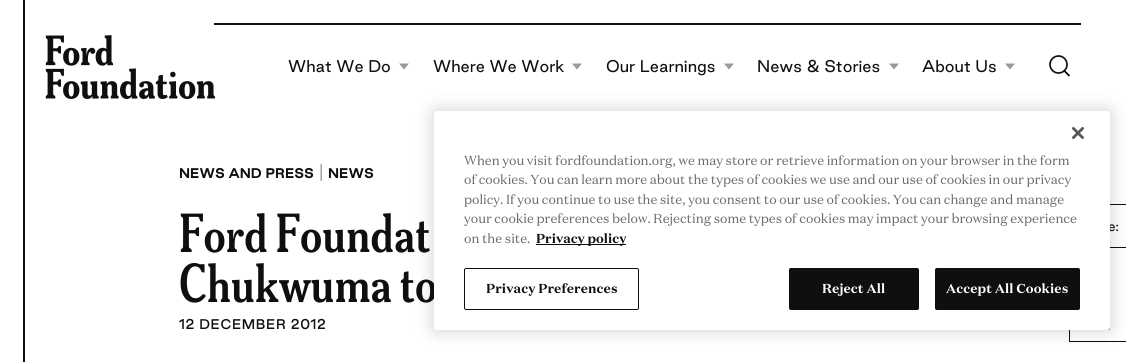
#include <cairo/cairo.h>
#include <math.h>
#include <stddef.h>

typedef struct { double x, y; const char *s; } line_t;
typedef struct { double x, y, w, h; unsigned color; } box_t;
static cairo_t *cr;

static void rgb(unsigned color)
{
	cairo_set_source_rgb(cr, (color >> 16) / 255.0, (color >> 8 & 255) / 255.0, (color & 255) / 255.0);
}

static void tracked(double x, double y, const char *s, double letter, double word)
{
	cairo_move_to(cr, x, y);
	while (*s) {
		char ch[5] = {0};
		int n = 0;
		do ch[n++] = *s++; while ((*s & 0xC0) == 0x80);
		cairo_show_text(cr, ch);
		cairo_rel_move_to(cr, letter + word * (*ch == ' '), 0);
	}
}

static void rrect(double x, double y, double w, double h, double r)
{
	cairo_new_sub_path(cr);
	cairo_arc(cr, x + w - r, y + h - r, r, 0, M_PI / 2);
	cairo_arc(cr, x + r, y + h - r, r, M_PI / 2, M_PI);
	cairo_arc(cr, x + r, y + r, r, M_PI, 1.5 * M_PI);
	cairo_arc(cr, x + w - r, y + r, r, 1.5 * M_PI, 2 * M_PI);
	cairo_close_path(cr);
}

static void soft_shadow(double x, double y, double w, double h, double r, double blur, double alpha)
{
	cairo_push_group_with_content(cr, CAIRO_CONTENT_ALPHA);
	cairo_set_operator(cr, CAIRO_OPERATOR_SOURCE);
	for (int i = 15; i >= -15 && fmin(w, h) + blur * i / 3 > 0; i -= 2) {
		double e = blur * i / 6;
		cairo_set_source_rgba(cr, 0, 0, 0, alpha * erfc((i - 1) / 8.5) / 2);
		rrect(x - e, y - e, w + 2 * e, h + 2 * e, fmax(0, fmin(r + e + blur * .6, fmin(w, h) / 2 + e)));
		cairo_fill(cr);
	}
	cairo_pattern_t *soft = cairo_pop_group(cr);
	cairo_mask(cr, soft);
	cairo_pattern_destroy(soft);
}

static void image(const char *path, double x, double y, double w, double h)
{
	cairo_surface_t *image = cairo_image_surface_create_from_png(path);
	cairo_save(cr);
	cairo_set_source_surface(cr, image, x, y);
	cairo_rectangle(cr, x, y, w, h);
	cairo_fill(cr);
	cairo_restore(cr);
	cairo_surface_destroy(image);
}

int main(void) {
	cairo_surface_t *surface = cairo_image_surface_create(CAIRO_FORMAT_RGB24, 1126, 362);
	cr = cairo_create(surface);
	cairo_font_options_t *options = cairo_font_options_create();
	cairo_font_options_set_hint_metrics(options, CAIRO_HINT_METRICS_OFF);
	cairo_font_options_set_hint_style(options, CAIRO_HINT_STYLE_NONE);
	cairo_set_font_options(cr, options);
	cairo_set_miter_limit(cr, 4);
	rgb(0xffffff);
	cairo_paint(cr);
	{
		static const box_t items[] = {
			{23, 0, 2, 362, 0x0f0f0f},
			{23, 23, 2, 88, 0xffffff},
			{23, 23, 2, 88, 0x0f0f0f},
			{214, 23, 867, 2, 0x0f0f0f},
		};
		for (size_t i = 0; i < sizeof items / sizeof *items; i++) {
			rgb(items[i].color);
			cairo_rectangle(cr, items[i].x, items[i].y, items[i].w, items[i].h);
			cairo_fill(cr);
		}
	}
	image("img/1.png", 45, 35, 170, 64);
	rgb(0x999999);
	cairo_new_path(cr);
	cairo_move_to(cr, 404, 69.5);
	cairo_line_to(cr, 399, 63.5);
	cairo_line_to(cr, 409, 63.5);
	cairo_close_path(cr);
	cairo_fill(cr);
	cairo_new_path(cr);
	cairo_move_to(cr, 577, 69.5);
	cairo_line_to(cr, 572, 63.5);
	cairo_line_to(cr, 582, 63.5);
	cairo_close_path(cr);
	cairo_fill(cr);
	cairo_new_path(cr);
	cairo_move_to(cr, 729, 69.5);
	cairo_line_to(cr, 724, 63.5);
	cairo_line_to(cr, 734, 63.5);
	cairo_close_path(cr);
	cairo_fill(cr);
	cairo_new_path(cr);
	cairo_move_to(cr, 894, 69.5);
	cairo_line_to(cr, 889, 63.5);
	cairo_line_to(cr, 899, 63.5);
	cairo_close_path(cr);
	cairo_fill(cr);
	cairo_new_path(cr);
	cairo_move_to(cr, 1010, 69.5);
	cairo_line_to(cr, 1005, 63.5);
	cairo_line_to(cr, 1015, 63.5);
	cairo_close_path(cr);
	cairo_fill(cr);
	cairo_arc(cr, 1058.5, 64.5, 8.5, 0, 2 * M_PI);
	rgb(0x0f0f0f);
	cairo_set_line_width(cr, 1.7);
	cairo_stroke(cr);
	cairo_new_path(cr);
	cairo_move_to(cr, 1064, 70.5);
	cairo_line_to(cr, 1069.5, 76);
	rgb(0x000000);
	cairo_stroke(cr);
	{
		static const box_t items[] = {
			{1110, 204, 16, 1, 0x0f0f0f},
			{1069, 341, 57, 1, 0x0f0f0f},
			{1069, 330, 1, 12, 0x0f0f0f},
			{1110, 247, 16, 1, 0x0f0f0f},
		};
		for (size_t i = 0; i < sizeof items / sizeof *items; i++) {
			rgb(items[i].color);
			cairo_rectangle(cr, items[i].x, items[i].y, items[i].w, items[i].h);
			cairo_fill(cr);
		}
	}
	image("img/2.png", 1107, 327, 3, 3);
	rgb(0x000000);
	soft_shadow(434, 111, 676, 219, 2.5, 9, 0.2);
	cairo_select_font_face(cr, "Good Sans", CAIRO_FONT_SLANT_NORMAL, CAIRO_FONT_WEIGHT_NORMAL);
	cairo_set_font_size(cr, 15.25);
	rgb(0x0f0f0f);
	{
		static const line_t items[] = {
			{288, 72, "What We Do"},
			{433, 72, "Where We Work"},
			{606, 72, "Our Learnings"},
			{757, 72, "News & Stories"},
			{922, 72, "About Us"},
		};
		for (size_t i = 0; i < sizeof items / sizeof *items; i++) {
			cairo_move_to(cr, items[i].x, items[i].y);
			cairo_show_text(cr, items[i].s);
		}
	}
	cairo_select_font_face(cr, "Good Sans", CAIRO_FONT_SLANT_NORMAL, CAIRO_FONT_WEIGHT_BOLD);
	cairo_set_font_size(cr, 12.6);
	cairo_move_to(cr, 179, 178);
	cairo_show_text(cr, "NEWS AND PRESS");
	cairo_select_font_face(cr, "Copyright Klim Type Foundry", CAIRO_FONT_SLANT_NORMAL, CAIRO_FONT_WEIGHT_NORMAL);
	cairo_set_font_size(cr, 19);
	rgb(0x575757);
	cairo_move_to(cr, 319, 178);
	cairo_show_text(cr, "|");
	cairo_select_font_face(cr, "Good Sans", CAIRO_FONT_SLANT_NORMAL, CAIRO_FONT_WEIGHT_BOLD);
	cairo_set_font_size(cr, 12.6);
	rgb(0x0f0f0f);
	cairo_move_to(cr, 328, 178);
	cairo_show_text(cr, "NEWS");
	cairo_select_font_face(cr, "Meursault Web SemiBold", CAIRO_FONT_SLANT_NORMAL, CAIRO_FONT_WEIGHT_NORMAL);
	cairo_set_font_size(cr, 48);
	cairo_move_to(cr, 179, 252);
	cairo_show_text(cr, "Ford Foundat");
	cairo_move_to(cr, 179, 302);
	cairo_show_text(cr, "Chukwuma to");
	cairo_select_font_face(cr, "Good Sans Medium", CAIRO_FONT_SLANT_NORMAL, CAIRO_FONT_WEIGHT_NORMAL);
	cairo_set_font_size(cr, 12.6);
	tracked(179, 329, "12 DECEMBER 2012", 0.6, 0);
	cairo_select_font_face(cr, "Good Sans", CAIRO_FONT_SLANT_NORMAL, CAIRO_FONT_WEIGHT_NORMAL);
	cairo_move_to(cr, 1108, 231);
	cairo_show_text(cr, "e:");
	rgb(0xffffff);
	rrect(434, 111, 676, 219, 2.5);
	cairo_fill(cr);
	image("img/3.png", 1072, 127, 12, 12);
	cairo_select_font_face(cr, "Copyright Klim Type Foundry", CAIRO_FONT_SLANT_NORMAL, CAIRO_FONT_WEIGHT_NORMAL);
	cairo_set_font_size(cr, 13);
	rgb(0x696969);
	{
		static const line_t items[] = {
			{464, 165, "When you visit fordfoundation.org, we may store or retrieve information on your browser in the form"},
			{464, 184, "of cookies. You can learn more about the types of cookies we use and our use of cookies in our privacy"},
			{464, 204, "policy. If you continue to use the site, you consent to our use of cookies. You can change and manage"},
			{464, 223, "your cookie preferences below. Rejecting some types of cookies may impact your browsing experience"},
			{464, 243, "on the site."},
		};
		for (size_t i = 0; i < sizeof items / sizeof *items; i++) {
			cairo_move_to(cr, items[i].x, items[i].y);
			cairo_show_text(cr, items[i].s);
		}
	}
	rgb(0x0f0f0f);
	cairo_rectangle(cr, 536, 244, 90, 1);
	cairo_fill(cr);
	cairo_select_font_face(cr, "Copyright Klim Type Foundry", CAIRO_FONT_SLANT_NORMAL, CAIRO_FONT_WEIGHT_BOLD);
	cairo_move_to(cr, 536, 243);
	cairo_show_text(cr, "Privacy policy");
	rrect(464.5, 268.5, 174, 41, 1.5);
	cairo_set_line_width(cr, 1);
	cairo_stroke(cr);
	tracked(486, 293, "Privacy Preferences", 0.1, 0);
	rrect(789.5, 268.5, 129, 41, 1.5);
	cairo_fill_preserve(cr);
	cairo_stroke(cr);
	rgb(0xffffff);
	tracked(822, 293, "Reject All", 0.1, 0);
	rgb(0x0f0f0f);
	rrect(935.5, 268.5, 144, 41, 1.5);
	cairo_fill_preserve(cr);
	cairo_stroke(cr);
	rgb(0xffffff);
	tracked(946, 293, "Accept All Cookies", 0.1, 0);
	cairo_surface_write_to_png(surface, "page.png");
	cairo_font_options_destroy(options);
	cairo_destroy(cr);
	cairo_surface_destroy(surface);
	return 0;
}
